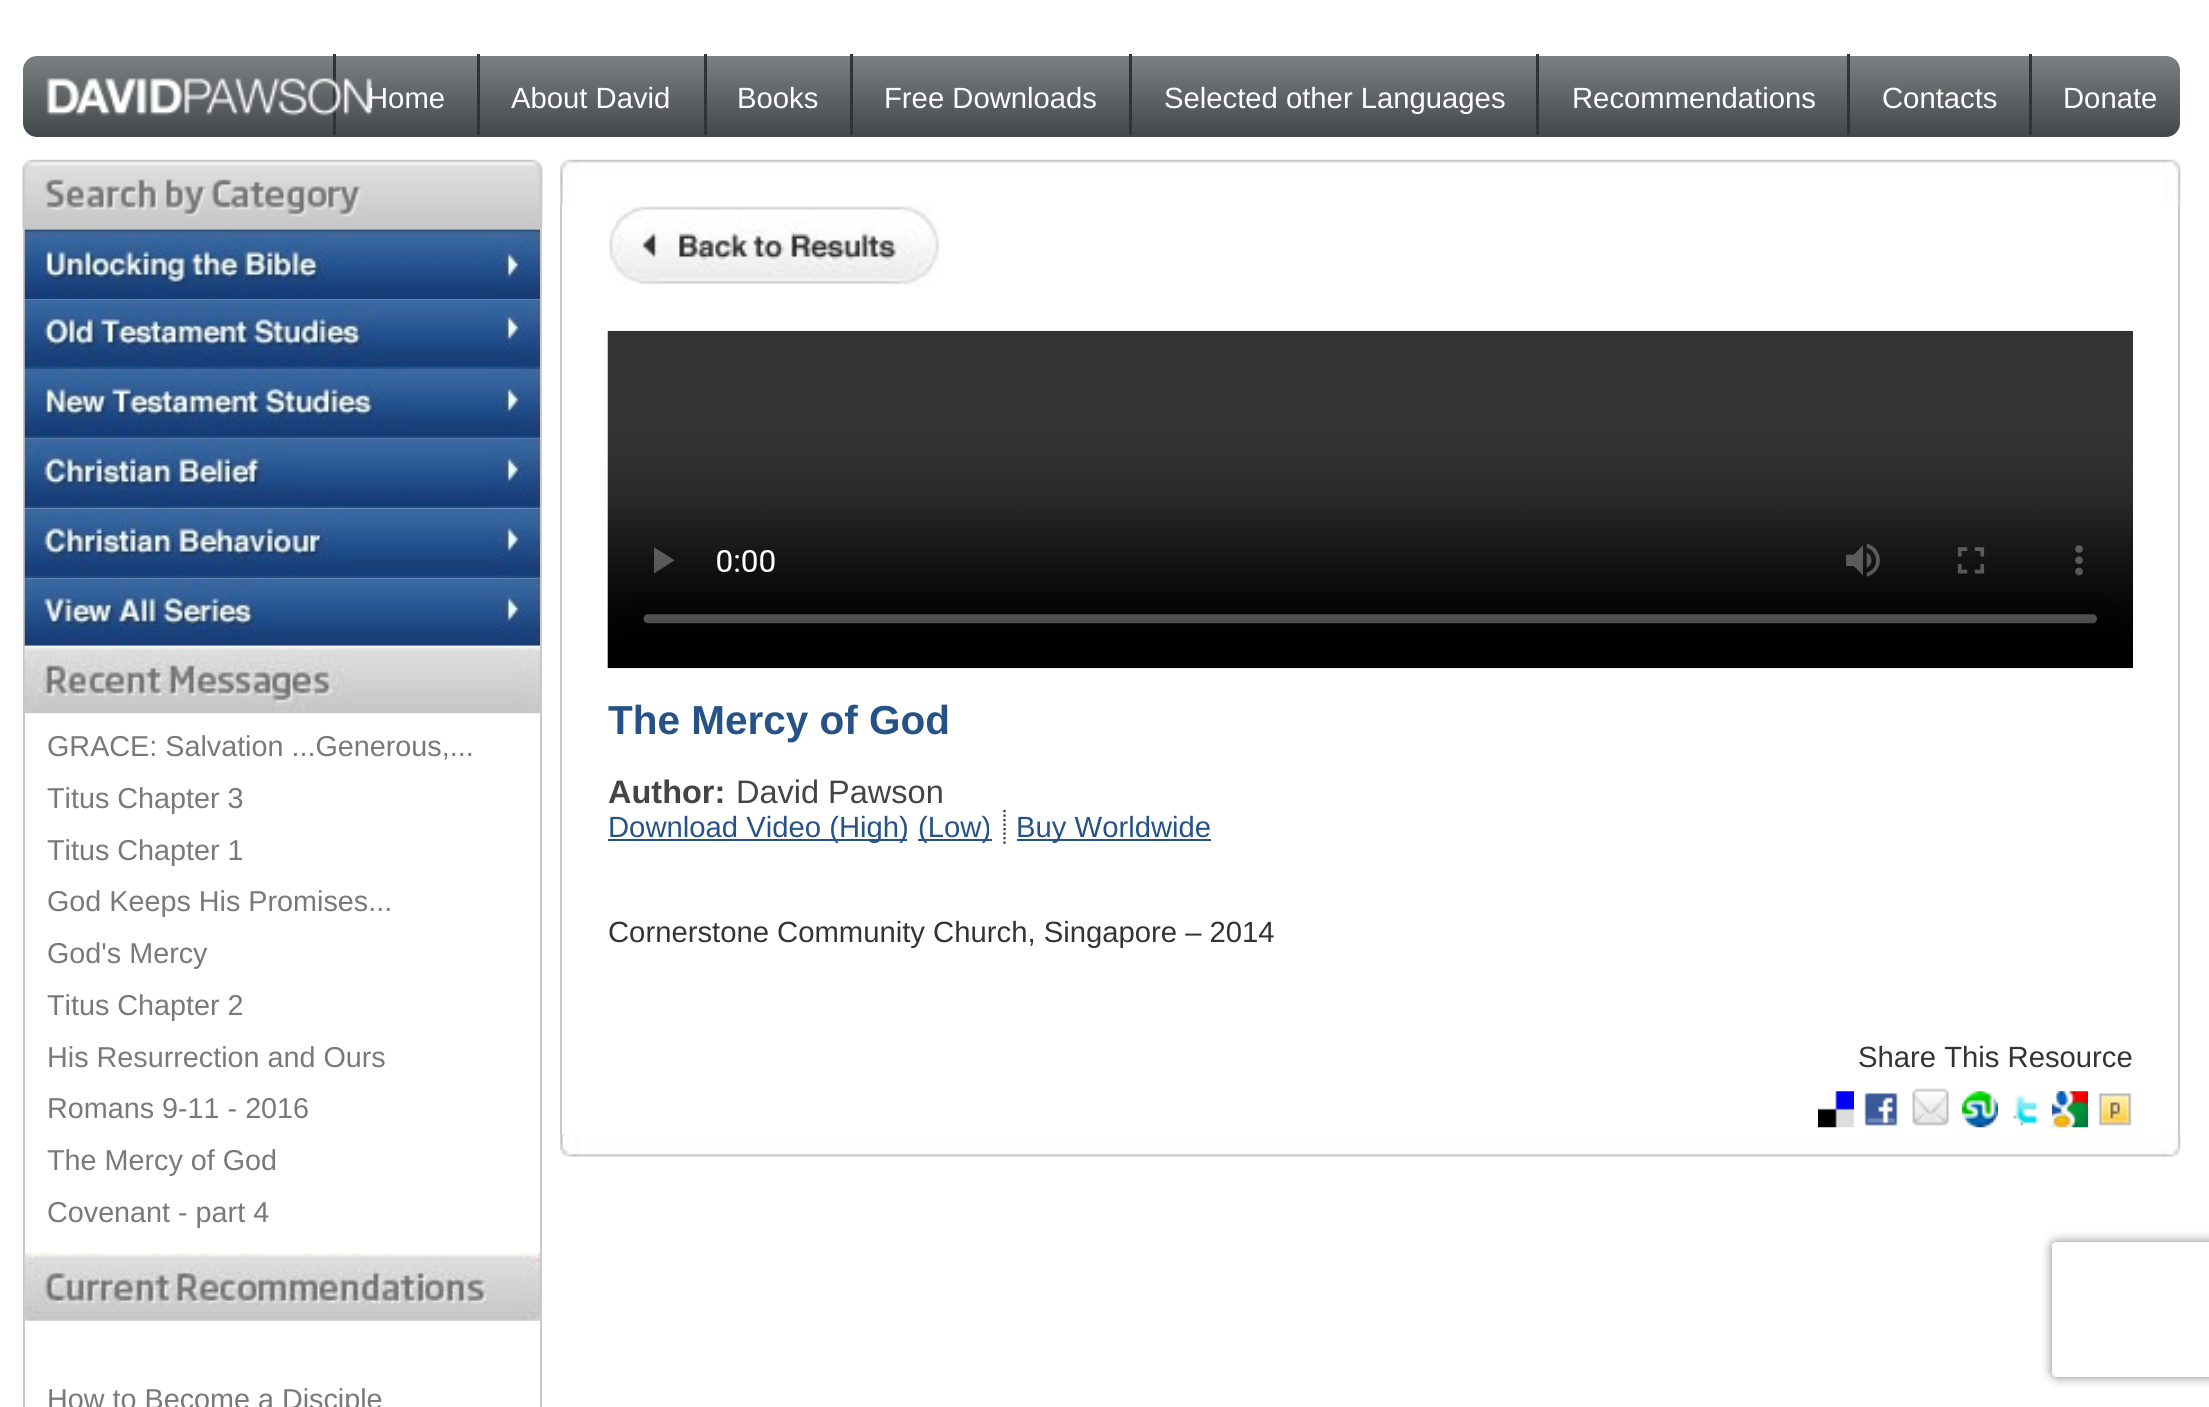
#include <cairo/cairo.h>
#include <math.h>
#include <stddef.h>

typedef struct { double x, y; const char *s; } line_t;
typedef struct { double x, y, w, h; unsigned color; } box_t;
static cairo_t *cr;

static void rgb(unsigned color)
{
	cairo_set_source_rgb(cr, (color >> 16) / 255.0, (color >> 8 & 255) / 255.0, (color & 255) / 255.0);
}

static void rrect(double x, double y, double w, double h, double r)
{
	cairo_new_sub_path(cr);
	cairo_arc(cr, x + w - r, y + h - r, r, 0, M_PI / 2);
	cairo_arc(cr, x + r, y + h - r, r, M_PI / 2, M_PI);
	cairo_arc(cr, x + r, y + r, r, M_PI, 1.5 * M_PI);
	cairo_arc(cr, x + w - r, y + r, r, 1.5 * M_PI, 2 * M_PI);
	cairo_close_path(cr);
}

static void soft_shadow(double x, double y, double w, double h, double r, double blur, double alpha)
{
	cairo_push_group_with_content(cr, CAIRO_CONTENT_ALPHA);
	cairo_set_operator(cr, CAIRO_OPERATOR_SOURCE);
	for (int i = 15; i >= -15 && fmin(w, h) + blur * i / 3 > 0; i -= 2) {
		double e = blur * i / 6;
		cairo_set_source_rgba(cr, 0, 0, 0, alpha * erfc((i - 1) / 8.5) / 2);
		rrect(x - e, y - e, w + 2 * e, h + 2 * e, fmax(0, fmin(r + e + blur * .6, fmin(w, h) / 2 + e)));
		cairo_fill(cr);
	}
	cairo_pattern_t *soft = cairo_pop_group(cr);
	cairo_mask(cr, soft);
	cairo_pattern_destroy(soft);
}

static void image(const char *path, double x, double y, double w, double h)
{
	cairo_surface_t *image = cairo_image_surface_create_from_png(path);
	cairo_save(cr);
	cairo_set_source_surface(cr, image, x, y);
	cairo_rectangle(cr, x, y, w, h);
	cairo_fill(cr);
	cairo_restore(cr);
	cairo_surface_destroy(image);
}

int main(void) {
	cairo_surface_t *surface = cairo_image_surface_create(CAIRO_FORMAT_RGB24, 2209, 1407);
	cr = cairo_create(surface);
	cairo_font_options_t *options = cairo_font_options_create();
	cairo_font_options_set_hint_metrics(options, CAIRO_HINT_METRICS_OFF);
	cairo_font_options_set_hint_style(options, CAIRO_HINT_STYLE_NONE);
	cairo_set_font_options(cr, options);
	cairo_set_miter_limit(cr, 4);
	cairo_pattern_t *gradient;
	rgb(0xffffff);
	cairo_paint(cr);
	gradient = cairo_pattern_create_linear(1101, 56, 1101, 137);
	cairo_pattern_add_color_stop_rgba(gradient, 0, 0.486, 0.502, 0.506, 1);
	cairo_pattern_add_color_stop_rgba(gradient, 1, 0.259, 0.278, 0.294, 1);
	cairo_set_source(cr, gradient);
	cairo_pattern_destroy(gradient);
	rrect(23, 56, 2157, 81, 14);
	cairo_fill(cr);
	{
		static const box_t items[] = {
			{333, 54, 3, 81, 0x323338},
			{477, 54, 3, 81, 0x323338},
			{704, 54, 3, 81, 0x323338},
			{850, 54, 3, 81, 0x323338},
			{1129, 54, 3, 81, 0x323338},
			{1536, 54, 3, 81, 0x323338},
			{1847, 54, 3, 81, 0x323338},
			{2029, 54, 3, 81, 0x323338},
		};
		for (size_t i = 0; i < sizeof items / sizeof *items; i++) {
			rgb(items[i].color);
			cairo_rectangle(cr, items[i].x, items[i].y, items[i].w, items[i].h);
			cairo_fill(cr);
		}
	}
	image("img/2.png", 22, 159, 521, 71);
	rgb(0xc9c9c9);
	cairo_rectangle(cr, 540, 230, 2, 1177);
	cairo_fill(cr);
	cairo_rectangle(cr, 23, 230, 2, 1177);
	cairo_fill(cr);
	image("img/3.png", 24, 229, 516, 71);
	image("img/4.png", 24, 299, 516, 70);
	image("img/5.png", 24, 369, 516, 70);
	image("img/6.png", 24, 438, 516, 71);
	image("img/7.png", 24, 508, 516, 71);
	image("img/8.png", 24, 578, 516, 68);
	image("img/9.png", 24, 645, 516, 69);
	image("img/10.png", 24, 1253, 516, 68);
	image("img/11.png", 560, 159, 1621, 46);
	cairo_rectangle(cr, 2178, 205, 2, 929);
	cairo_fill(cr);
	cairo_rectangle(cr, 560, 205, 2, 929);
	cairo_fill(cr);
	image("img/12.png", 608, 205, 335, 81);
	image("img/13.png", 607, 330, 1526, 339);
	rgb(0x275287);
	cairo_rectangle(cr, 608, 839, 299, 2);
	cairo_fill(cr);
	cairo_rectangle(cr, 918, 839, 74, 2);
	cairo_fill(cr);
	cairo_new_path(cr);
	cairo_move_to(cr, 1004.5, 810);
	cairo_line_to(cr, 1004.5, 844);
	rgb(0x333333);
	cairo_set_line_width(cr, 2.2);
	cairo_set_dash(cr, (double[]){2.25, 2.25}, 2, 0);
	cairo_stroke(cr);
	rgb(0x275287);
	cairo_rectangle(cr, 1017, 839, 194, 2);
	cairo_fill(cr);
	image("img/14.png", 1818, 1091, 36, 37);
	image("img/15.png", 1864, 1093, 34, 33);
	image("img/16.png", 1912, 1088, 38, 38);
	image("img/17.png", 1962, 1091, 36, 37);
	image("img/18.png", 2013, 1095, 24, 31);
	image("img/19.png", 2052, 1091, 36, 37);
	image("img/20.png", 2098, 1093, 34, 33);
	image("img/21.png", 560, 1134, 1621, 23);
	cairo_save(cr);
	cairo_set_fill_rule(cr, CAIRO_FILL_RULE_EVEN_ODD);
	cairo_new_path(cr);
	cairo_move_to(cr, 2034, 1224);
	cairo_line_to(cr, 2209, 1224);
	cairo_line_to(cr, 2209, 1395);
	cairo_line_to(cr, 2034, 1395);
	cairo_close_path(cr);
	cairo_move_to(cr, 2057, 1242);
	cairo_line_to(cr, 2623, 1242);
	cairo_curve_to(cr, 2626, 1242, 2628, 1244, 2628, 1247);
	cairo_line_to(cr, 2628, 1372);
	cairo_curve_to(cr, 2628, 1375, 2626, 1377, 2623, 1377);
	cairo_line_to(cr, 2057, 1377);
	cairo_curve_to(cr, 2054, 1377, 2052, 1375, 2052, 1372);
	cairo_line_to(cr, 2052, 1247);
	cairo_curve_to(cr, 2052, 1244, 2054, 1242, 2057, 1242);
	cairo_close_path(cr);
	cairo_clip(cr);
	rgb(0x808080);
	soft_shadow(2052, 1242, 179, 135, 5, 5.5, 1);
	cairo_restore(cr);
	cairo_select_font_face(cr, "Liberation Sans", CAIRO_FONT_SLANT_NORMAL, CAIRO_FONT_WEIGHT_NORMAL);
	cairo_set_font_size(cr, 29.25);
	rgb(0xffffff);
	cairo_move_to(cr, 367, 108);
	cairo_show_text(cr, "Home");
	image("img/1.png", 46, 78, 326, 38);
	{
		static const line_t items[] = {
			{511, 108, "About David"},
			{737, 108, "Books"},
			{884, 108, "Free Downloads"},
			{1164, 108, "Selected other Languages"},
			{1572, 108, "Recommendations"},
			{1882, 108, "Contacts"},
			{2063, 108, "Donate"},
		};
		for (size_t i = 0; i < sizeof items / sizeof *items; i++) {
			cairo_move_to(cr, items[i].x, items[i].y);
			cairo_show_text(cr, items[i].s);
		}
	}
	cairo_set_font_size(cr, 28.75);
	rgb(0x797979);
	{
		static const line_t items[] = {
			{47, 756, "GRACE: Salvation ...Generous,..."},
			{47, 808, "Titus Chapter 3"},
			{47, 860, "Titus Chapter 1"},
			{47, 911, "God Keeps His Promises..."},
			{47, 963, "God's Mercy"},
			{47, 1015, "Titus Chapter 2"},
			{47, 1067, "His Resurrection and Ours"},
			{47, 1118, "Romans 9-11 - 2016"},
			{47, 1170, "The Mercy of God"},
			{47, 1222, "Covenant - part 4"},
			{47, 1409, "How to Become a Disciple"},
		};
		for (size_t i = 0; i < sizeof items / sizeof *items; i++) {
			cairo_move_to(cr, items[i].x, items[i].y);
			cairo_show_text(cr, items[i].s);
		}
	}
	cairo_select_font_face(cr, "Liberation Sans", CAIRO_FONT_SLANT_NORMAL, CAIRO_FONT_WEIGHT_BOLD);
	cairo_set_font_size(cr, 40.5);
	rgb(0x275287);
	cairo_move_to(cr, 608, 734);
	cairo_show_text(cr, "The Mercy of God");
	cairo_set_font_size(cr, 32.5);
	rgb(0x444444);
	cairo_move_to(cr, 608, 803);
	cairo_show_text(cr, "Author:");
	cairo_select_font_face(cr, "Liberation Sans", CAIRO_FONT_SLANT_NORMAL, CAIRO_FONT_WEIGHT_NORMAL);
	cairo_move_to(cr, 736, 803);
	cairo_show_text(cr, "David Pawson");
	cairo_set_font_size(cr, 29.25);
	rgb(0x275287);
	{
		static const line_t items[] = {
			{608, 837, "Download Video (High)"},
			{918, 837, "(Low)"},
			{1016, 837, "Buy Worldwide"},
		};
		for (size_t i = 0; i < sizeof items / sizeof *items; i++) {
			cairo_move_to(cr, items[i].x, items[i].y);
			cairo_show_text(cr, items[i].s);
		}
	}
	rgb(0x333333);
	cairo_move_to(cr, 608, 942);
	cairo_show_text(cr, "Cornerstone Community Church, Singapore – 2014");
	cairo_move_to(cr, 1858, 1067);
	cairo_show_text(cr, "Share This Resource");
	cairo_surface_write_to_png(surface, "page.png");
	cairo_font_options_destroy(options);
	cairo_destroy(cr);
	cairo_surface_destroy(surface);
	return 0;
}
